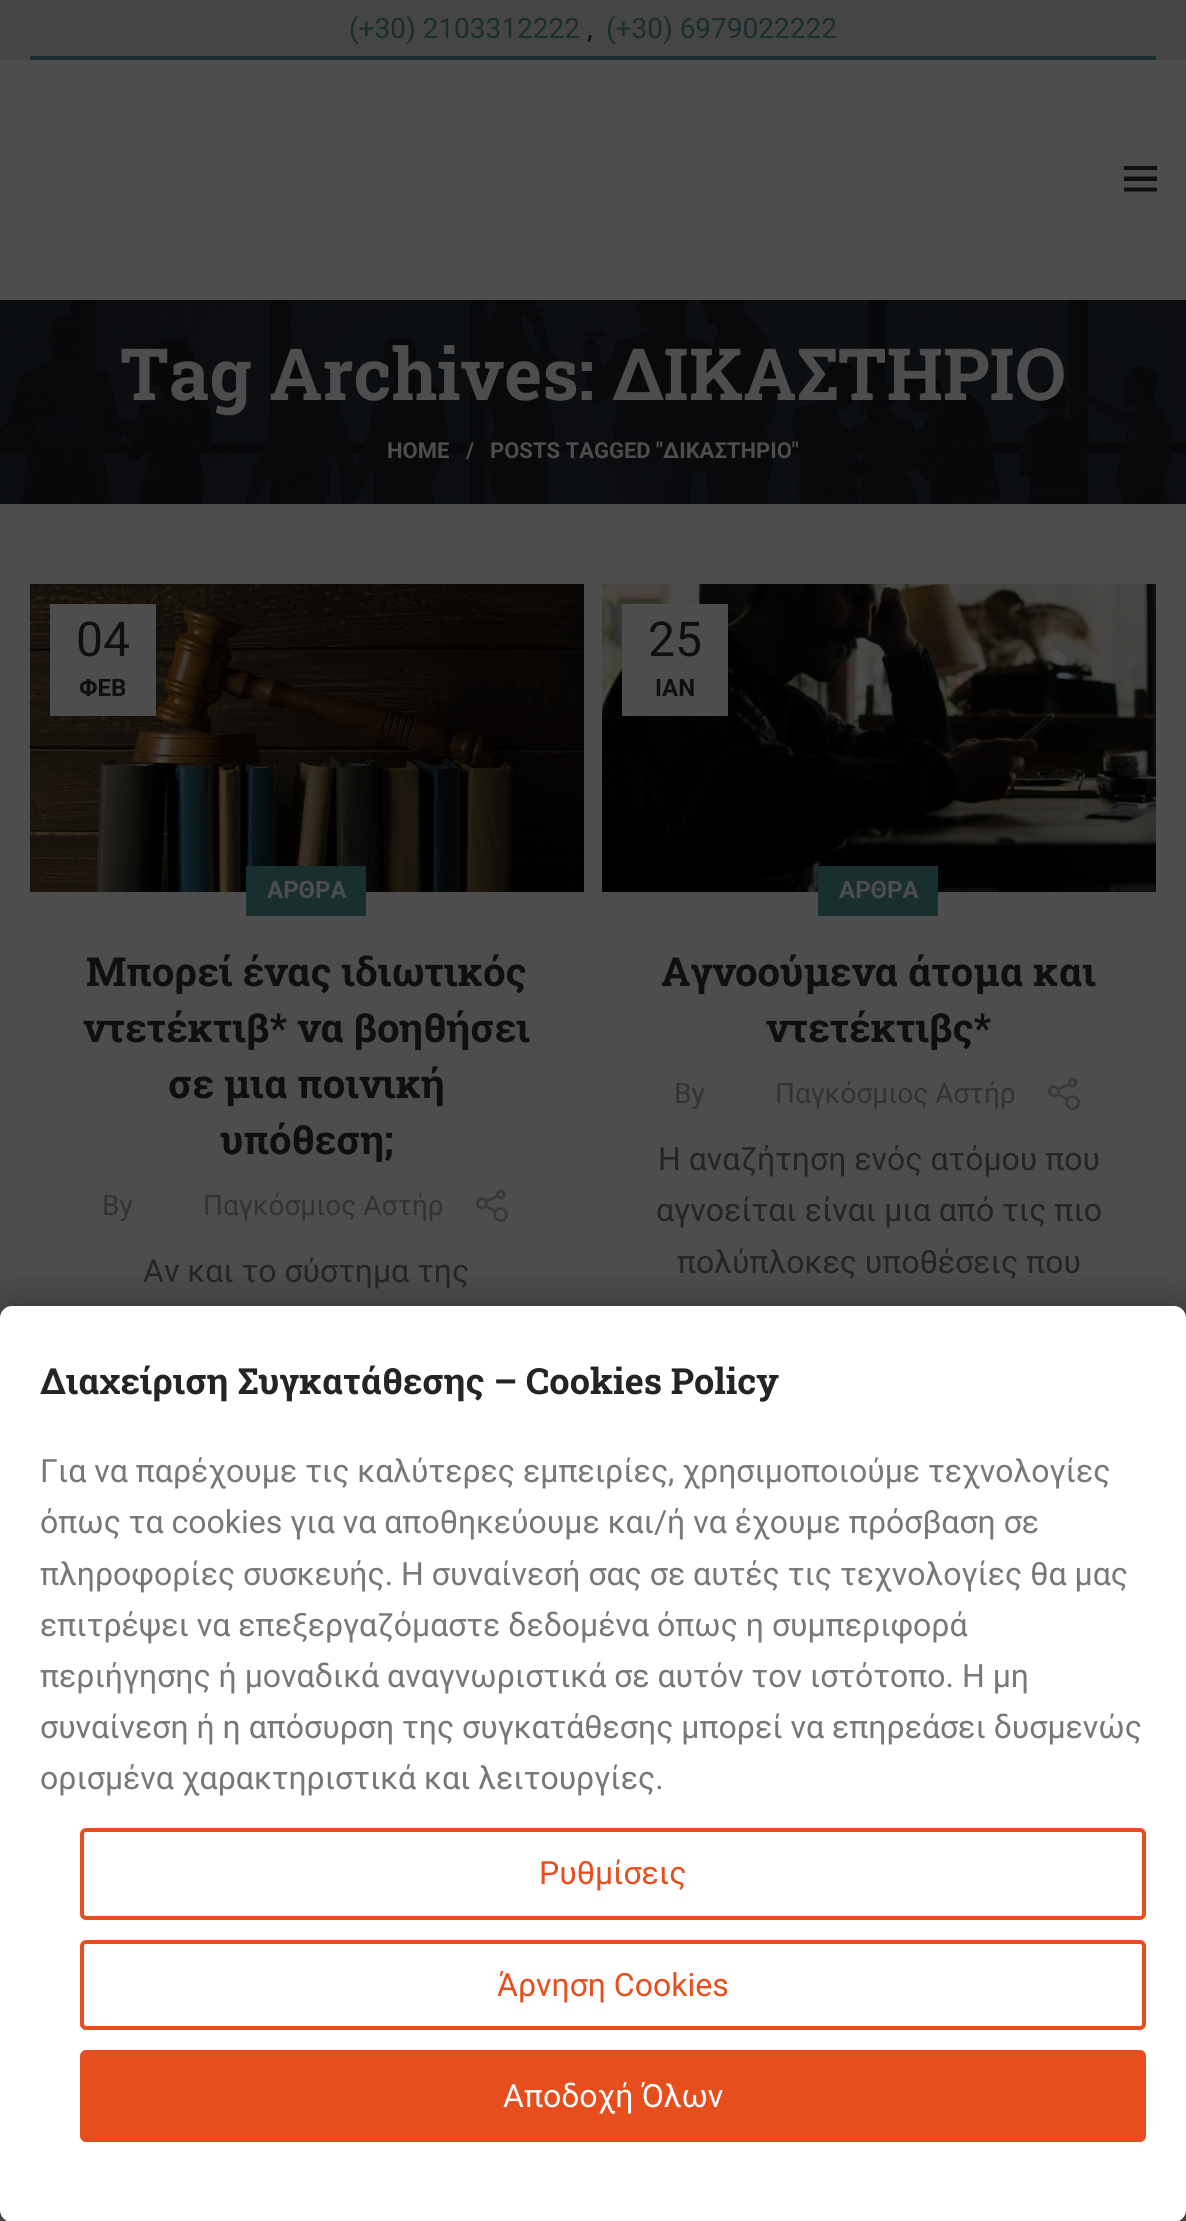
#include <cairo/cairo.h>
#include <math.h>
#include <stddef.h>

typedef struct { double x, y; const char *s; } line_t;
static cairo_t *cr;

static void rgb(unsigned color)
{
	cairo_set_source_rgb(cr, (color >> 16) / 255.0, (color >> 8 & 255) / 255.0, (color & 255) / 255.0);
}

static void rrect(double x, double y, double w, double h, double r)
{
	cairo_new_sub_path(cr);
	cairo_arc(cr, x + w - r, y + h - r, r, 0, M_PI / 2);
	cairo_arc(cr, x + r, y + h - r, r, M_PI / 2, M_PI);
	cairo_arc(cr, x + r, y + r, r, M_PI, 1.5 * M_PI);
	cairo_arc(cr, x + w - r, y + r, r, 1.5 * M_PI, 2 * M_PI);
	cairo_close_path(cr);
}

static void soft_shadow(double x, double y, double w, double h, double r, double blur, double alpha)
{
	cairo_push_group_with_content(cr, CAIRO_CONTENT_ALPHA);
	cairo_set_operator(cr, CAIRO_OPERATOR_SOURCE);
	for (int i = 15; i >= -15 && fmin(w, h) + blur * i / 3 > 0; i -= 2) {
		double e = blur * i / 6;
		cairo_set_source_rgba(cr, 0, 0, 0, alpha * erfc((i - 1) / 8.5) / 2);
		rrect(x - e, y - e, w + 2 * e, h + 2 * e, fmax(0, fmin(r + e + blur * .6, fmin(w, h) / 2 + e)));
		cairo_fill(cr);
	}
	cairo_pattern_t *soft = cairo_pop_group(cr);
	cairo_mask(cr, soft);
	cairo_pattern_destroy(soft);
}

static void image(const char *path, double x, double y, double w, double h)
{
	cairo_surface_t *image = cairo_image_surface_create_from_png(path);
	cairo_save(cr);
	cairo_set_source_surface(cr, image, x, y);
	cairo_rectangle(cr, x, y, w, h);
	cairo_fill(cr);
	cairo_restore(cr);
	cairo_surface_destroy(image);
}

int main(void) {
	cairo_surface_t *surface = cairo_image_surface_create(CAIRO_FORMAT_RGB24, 1186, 2221);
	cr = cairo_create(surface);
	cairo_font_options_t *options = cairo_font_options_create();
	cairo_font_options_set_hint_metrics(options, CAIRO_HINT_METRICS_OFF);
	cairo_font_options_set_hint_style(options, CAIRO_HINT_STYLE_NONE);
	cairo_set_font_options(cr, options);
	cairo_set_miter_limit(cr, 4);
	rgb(0x4d4d4d);
	cairo_paint(cr);
	rgb(0x454545);
	cairo_rectangle(cr, 0, 0, 1186, 60);
	cairo_fill(cr);
	rgb(0x192f2d);
	cairo_rectangle(cr, 30, 56, 1126, 4);
	cairo_fill(cr);
	rgb(0x0f0f0f);
	cairo_new_path(cr);
	cairo_move_to(cr, 1124, 166);
	cairo_line_to(cr, 1157, 166);
	cairo_line_to(cr, 1157, 170);
	cairo_line_to(cr, 1124, 170);
	cairo_close_path(cr);
	cairo_move_to(cr, 1124, 176.5);
	cairo_line_to(cr, 1157, 176.5);
	cairo_line_to(cr, 1157, 181);
	cairo_line_to(cr, 1124, 181);
	cairo_close_path(cr);
	cairo_move_to(cr, 1124, 187.5);
	cairo_line_to(cr, 1157, 187.5);
	cairo_line_to(cr, 1157, 191.5);
	cairo_line_to(cr, 1124, 191.5);
	cairo_close_path(cr);
	cairo_fill(cr);
	image("img/1.png", 0, 300, 1186, 204);
	image("img/2.png", 30, 584, 554, 308);
	rgb(0x4d4d4d);
	cairo_rectangle(cr, 50, 604, 106, 112);
	cairo_fill(cr);
	rgb(0x192f2d);
	cairo_rectangle(cr, 246, 866, 120, 50);
	cairo_fill(cr);
	image("img/3.png", 476, 1190, 32, 32);
	image("img/4.png", 602, 584, 554, 308);
	rgb(0x4d4d4d);
	cairo_rectangle(cr, 622, 604, 106, 112);
	cairo_fill(cr);
	rgb(0x192f2d);
	cairo_rectangle(cr, 818, 866, 120, 50);
	cairo_fill(cr);
	image("img/3.png", 1048, 1078, 32, 32);
	rgb(0x000000);
	soft_shadow(0, 1306, 1186, 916, 12, 20, 0.4);
	rgb(0xffffff);
	rrect(0, 1306, 1186, 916, 12);
	cairo_fill(cr);
	rrect(82, 1830, 1062, 88, 4);
	rgb(0xe74e1e);
	cairo_set_line_width(cr, 4);
	cairo_stroke(cr);
	rrect(82, 1942, 1062, 86, 4);
	cairo_stroke(cr);
	rrect(82, 2052, 1062, 88, 4);
	cairo_fill_preserve(cr);
	cairo_stroke(cr);
	cairo_select_font_face(cr, "Roboto", CAIRO_FONT_SLANT_NORMAL, CAIRO_FONT_WEIGHT_NORMAL);
	cairo_set_font_size(cr, 28);
	rgb(0x192f2d);
	cairo_move_to(cr, 349, 38);
	cairo_show_text(cr, "(+30) 2103312222");
	rgb(0x0f0f0f);
	cairo_move_to(cr, 587, 38);
	cairo_show_text(cr, ",");
	rgb(0x192f2d);
	cairo_move_to(cr, 606, 38);
	cairo_show_text(cr, "(+30) 6979022222");
	cairo_select_font_face(cr, "Roboto Slab", CAIRO_FONT_SLANT_NORMAL, CAIRO_FONT_WEIGHT_BOLD);
	cairo_set_font_size(cr, 72);
	rgb(0x4d4d4d);
	cairo_move_to(cr, 120, 400);
	cairo_show_text(cr, "Tag Archives: ΔΙΚΑΣΤΗΡΙΟ");
	cairo_select_font_face(cr, "Roboto", CAIRO_FONT_SLANT_NORMAL, CAIRO_FONT_WEIGHT_BOLD);
	cairo_set_font_size(cr, 22);
	{
		static const line_t items[] = {
			{387, 458, "HOME"},
			{466, 458, "/"},
			{490, 458, "POSTS TAGGED \"ΔΙΚΑΣΤΗΡΙΟ\""},
		};
		for (size_t i = 0; i < sizeof items / sizeof *items; i++) {
			cairo_move_to(cr, items[i].x, items[i].y);
			cairo_show_text(cr, items[i].s);
		}
	}
	cairo_select_font_face(cr, "Roboto", CAIRO_FONT_SLANT_NORMAL, CAIRO_FONT_WEIGHT_NORMAL);
	cairo_set_font_size(cr, 48);
	rgb(0x0f0f0f);
	cairo_move_to(cr, 76, 656);
	cairo_show_text(cr, "04");
	cairo_select_font_face(cr, "Roboto", CAIRO_FONT_SLANT_NORMAL, CAIRO_FONT_WEIGHT_BOLD);
	cairo_set_font_size(cr, 24);
	cairo_move_to(cr, 79, 696);
	cairo_show_text(cr, "ΦΕΒ");
	rgb(0x4d4d4d);
	cairo_move_to(cr, 267, 898);
	cairo_show_text(cr, "ΑΡΘΡΑ");
	cairo_select_font_face(cr, "Roboto Slab", CAIRO_FONT_SLANT_NORMAL, CAIRO_FONT_WEIGHT_BOLD);
	cairo_set_font_size(cr, 40);
	rgb(0x0f0f0f);
	{
		static const line_t items[] = {
			{86, 986, "Μπορεί ένας ιδιωτικός"},
			{83, 1042, "ντετέκτιβ* να βοηθήσει"},
			{168, 1098, "σε μια ποινική"},
			{220, 1154, "υπόθεση;"},
		};
		for (size_t i = 0; i < sizeof items / sizeof *items; i++) {
			cairo_move_to(cr, items[i].x, items[i].y);
			cairo_show_text(cr, items[i].s);
		}
	}
	cairo_select_font_face(cr, "Roboto", CAIRO_FONT_SLANT_NORMAL, CAIRO_FONT_WEIGHT_NORMAL);
	cairo_set_font_size(cr, 28);
	rgb(0x323232);
	cairo_move_to(cr, 102, 1215);
	cairo_show_text(cr, "By");
	cairo_move_to(cr, 203, 1215);
	cairo_show_text(cr, "Παγκόσμιος Αστήρ");
	cairo_set_font_size(cr, 32);
	rgb(0x242424);
	cairo_move_to(cr, 143, 1282);
	cairo_show_text(cr, "Αν και το σύστημα της");
	cairo_set_font_size(cr, 48);
	rgb(0x0f0f0f);
	cairo_move_to(cr, 648, 656);
	cairo_show_text(cr, "25");
	cairo_select_font_face(cr, "Roboto", CAIRO_FONT_SLANT_NORMAL, CAIRO_FONT_WEIGHT_BOLD);
	cairo_set_font_size(cr, 24);
	cairo_move_to(cr, 655, 696);
	cairo_show_text(cr, "ΙΑΝ");
	rgb(0x4d4d4d);
	cairo_move_to(cr, 839, 898);
	cairo_show_text(cr, "ΑΡΘΡΑ");
	cairo_select_font_face(cr, "Roboto Slab", CAIRO_FONT_SLANT_NORMAL, CAIRO_FONT_WEIGHT_BOLD);
	cairo_set_font_size(cr, 40);
	rgb(0x0f0f0f);
	cairo_move_to(cr, 661, 986);
	cairo_show_text(cr, "Αγνοούμενα άτομα και");
	cairo_move_to(cr, 766, 1042);
	cairo_show_text(cr, "ντετέκτιβς*");
	cairo_select_font_face(cr, "Roboto", CAIRO_FONT_SLANT_NORMAL, CAIRO_FONT_WEIGHT_NORMAL);
	cairo_set_font_size(cr, 28);
	rgb(0x323232);
	cairo_move_to(cr, 674, 1103);
	cairo_show_text(cr, "By");
	cairo_move_to(cr, 775, 1103);
	cairo_show_text(cr, "Παγκόσμιος Αστήρ");
	cairo_set_font_size(cr, 32);
	rgb(0x242424);
	{
		static const line_t items[] = {
			{658, 1170, "Η αναζήτηση ενός ατόμου που"},
			{656, 1221, "αγνοείται είναι μια από τις πιο"},
			{677, 1273, "πολύπλοκες υποθέσεις που"},
		};
		for (size_t i = 0; i < sizeof items / sizeof *items; i++) {
			cairo_move_to(cr, items[i].x, items[i].y);
			cairo_show_text(cr, items[i].s);
		}
	}
	cairo_select_font_face(cr, "Roboto Slab", CAIRO_FONT_SLANT_NORMAL, CAIRO_FONT_WEIGHT_BOLD);
	cairo_set_font_size(cr, 36);
	cairo_move_to(cr, 40, 1394);
	cairo_show_text(cr, "Διαχείριση Συγκατάθεσης – Cookies Policy");
	cairo_select_font_face(cr, "Roboto", CAIRO_FONT_SLANT_NORMAL, CAIRO_FONT_WEIGHT_NORMAL);
	cairo_set_font_size(cr, 32);
	rgb(0x777777);
	{
		static const line_t items[] = {
			{40, 1482, "Για να παρέχουμε τις καλύτερες εμπειρίες, χρησιμοποιούμε τεχνολογίες"},
			{40, 1533, "όπως τα cookies για να αποθηκεύουμε και/ή να έχουμε πρόσβαση σε"},
			{40, 1585, "πληροφορίες συσκευής. Η συναίνεσή σας σε αυτές τις τεχνολογίες θα μας"},
			{40, 1636, "επιτρέψει να επεξεργαζόμαστε δεδομένα όπως η συμπεριφορά"},
			{40, 1687, "περιήγησης ή μοναδικά αναγνωριστικά σε αυτόν τον ιστότοπο. Η μη"},
			{40, 1738, "συναίνεση ή η απόσυρση της συγκατάθεσης μπορεί να επηρεάσει δυσμενώς"},
			{40, 1789, "ορισμένα χαρακτηριστικά και λειτουργίες."},
		};
		for (size_t i = 0; i < sizeof items / sizeof *items; i++) {
			cairo_move_to(cr, items[i].x, items[i].y);
			cairo_show_text(cr, items[i].s);
		}
	}
	rgb(0xe74e1e);
	cairo_move_to(cr, 539, 1884);
	cairo_show_text(cr, "Ρυθμίσεις");
	cairo_move_to(cr, 497, 1996);
	cairo_show_text(cr, "Άρνηση Cookies");
	rgb(0xffffff);
	cairo_move_to(cr, 503, 2107);
	cairo_show_text(cr, "Αποδοχή Όλων");
	cairo_surface_write_to_png(surface, "page.png");
	cairo_font_options_destroy(options);
	cairo_destroy(cr);
	cairo_surface_destroy(surface);
	return 0;
}
